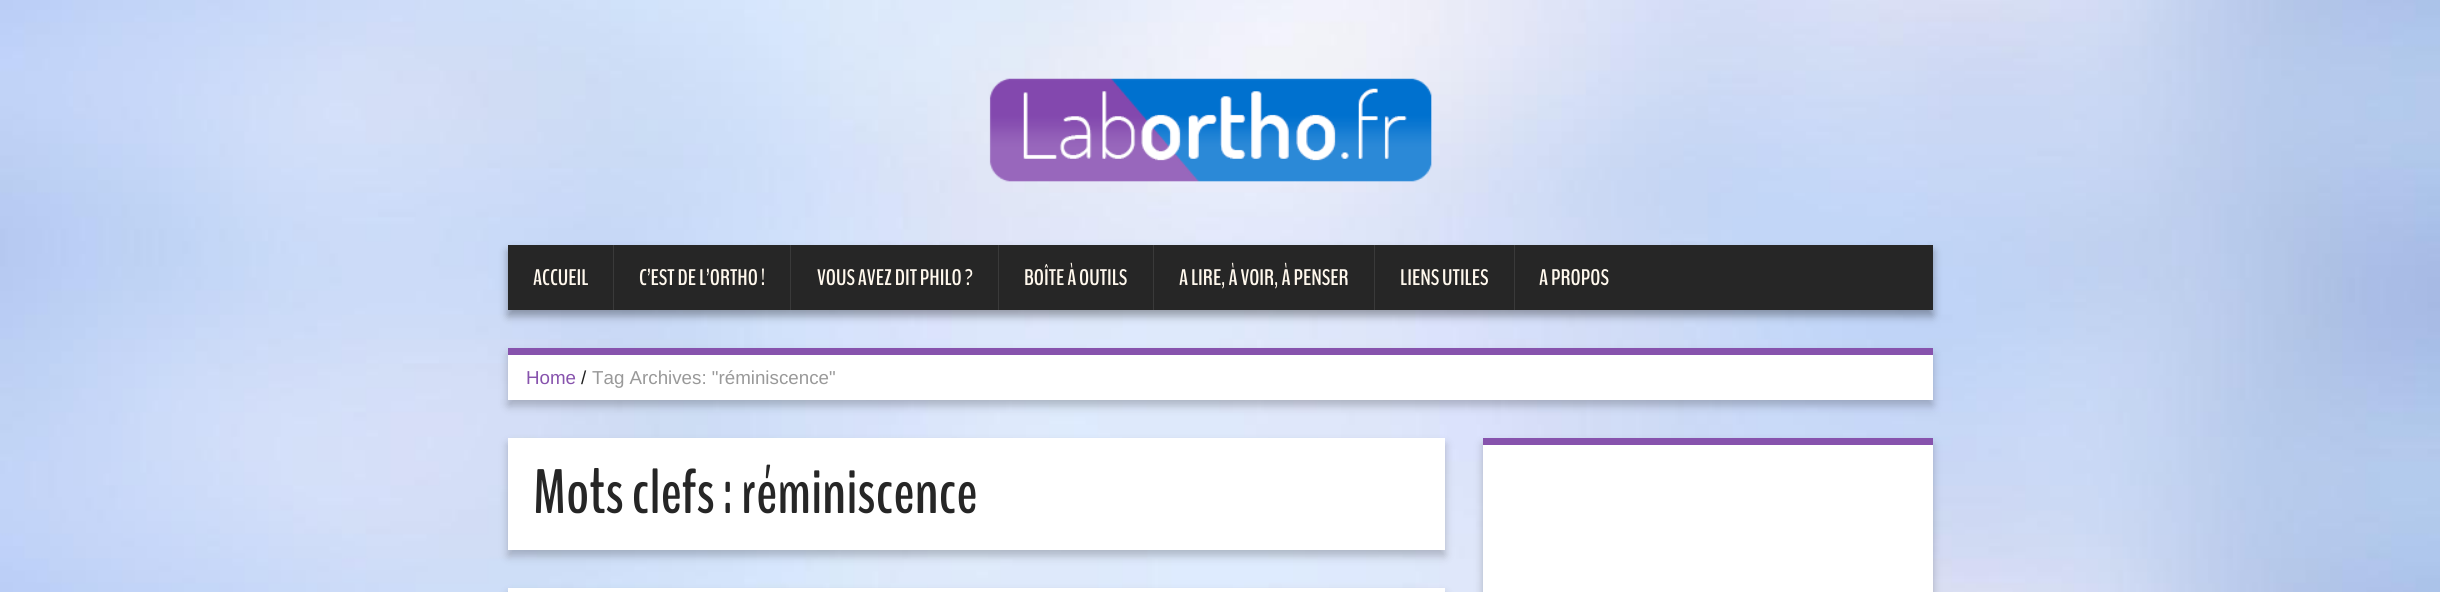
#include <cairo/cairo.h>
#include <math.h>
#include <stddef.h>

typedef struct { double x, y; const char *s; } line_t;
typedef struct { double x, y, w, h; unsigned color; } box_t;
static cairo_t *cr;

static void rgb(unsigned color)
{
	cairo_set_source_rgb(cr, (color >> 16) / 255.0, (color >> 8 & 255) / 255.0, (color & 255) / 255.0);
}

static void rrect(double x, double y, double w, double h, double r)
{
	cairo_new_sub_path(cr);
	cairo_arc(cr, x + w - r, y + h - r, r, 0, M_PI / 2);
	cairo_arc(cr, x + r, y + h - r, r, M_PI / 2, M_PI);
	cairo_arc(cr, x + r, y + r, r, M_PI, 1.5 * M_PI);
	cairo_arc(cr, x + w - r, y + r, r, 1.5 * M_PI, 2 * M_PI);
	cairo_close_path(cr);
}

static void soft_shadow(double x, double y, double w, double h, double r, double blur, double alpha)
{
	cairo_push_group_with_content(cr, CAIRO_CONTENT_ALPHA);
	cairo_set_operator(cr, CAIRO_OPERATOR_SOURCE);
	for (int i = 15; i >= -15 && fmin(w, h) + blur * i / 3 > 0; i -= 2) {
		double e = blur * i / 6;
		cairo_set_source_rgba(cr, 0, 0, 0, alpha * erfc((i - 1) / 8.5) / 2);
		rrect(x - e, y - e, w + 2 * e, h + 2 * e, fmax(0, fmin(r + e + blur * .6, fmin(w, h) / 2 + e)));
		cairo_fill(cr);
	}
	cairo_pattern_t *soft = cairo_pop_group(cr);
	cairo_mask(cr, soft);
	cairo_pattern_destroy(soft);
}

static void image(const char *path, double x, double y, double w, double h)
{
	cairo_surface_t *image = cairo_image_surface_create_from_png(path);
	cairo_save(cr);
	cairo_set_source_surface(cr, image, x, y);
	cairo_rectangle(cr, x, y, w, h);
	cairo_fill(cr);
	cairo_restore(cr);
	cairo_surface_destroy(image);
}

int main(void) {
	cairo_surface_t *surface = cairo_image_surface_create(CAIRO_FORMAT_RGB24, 2440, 592);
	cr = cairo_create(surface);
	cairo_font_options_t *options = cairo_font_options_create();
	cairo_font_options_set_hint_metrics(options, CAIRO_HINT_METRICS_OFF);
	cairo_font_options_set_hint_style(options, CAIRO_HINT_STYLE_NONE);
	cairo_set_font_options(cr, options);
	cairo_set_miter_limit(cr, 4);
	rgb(0xffffff);
	cairo_paint(cr);
	image("img/1.png", 0, 0, 2440, 592);
	image("img/2.png", 989, 78, 443, 104);
	rgb(0x000000);
	soft_shadow(508, 251, 1425, 65, 0, 4.5, 0.33);
	{
		static const box_t items[] = {
			{508, 245, 1425, 65, 0x262626},
			{613, 245, 1, 65, 0x3a3a3a},
			{790, 245, 1, 65, 0x3a3a3a},
			{998, 245, 1, 65, 0x3a3a3a},
			{1153, 245, 1, 65, 0x3a3a3a},
			{1374, 245, 1, 65, 0x3a3a3a},
			{1514, 245, 1, 65, 0x3a3a3a},
		};
		for (size_t i = 0; i < sizeof items / sizeof *items; i++) {
			rgb(items[i].color);
			cairo_rectangle(cr, items[i].x, items[i].y, items[i].w, items[i].h);
			cairo_fill(cr);
		}
	}
	rgb(0x000000);
	soft_shadow(508, 354, 1425, 52, 0, 4.5, 0.22);
	rgb(0xffffff);
	cairo_rectangle(cr, 508, 355, 1425, 45);
	cairo_fill(cr);
	rgb(0x8753ad);
	cairo_rectangle(cr, 508, 348, 1425, 7);
	cairo_fill(cr);
	rgb(0x000000);
	soft_shadow(508, 444, 937, 112, 0, 4.5, 0.22);
	rgb(0xffffff);
	cairo_rectangle(cr, 508, 438, 937, 112);
	cairo_fill(cr);
	rgb(0x000000);
	soft_shadow(508, 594, 937, 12, 0, 4.5, 0.22);
	rgb(0xffffff);
	cairo_rectangle(cr, 508, 588, 937, 4);
	cairo_fill(cr);
	rgb(0x000000);
	soft_shadow(1483, 444, 450, 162, 0, 4.5, 0.22);
	rgb(0xffffff);
	cairo_rectangle(cr, 1483, 445, 450, 147);
	cairo_fill(cr);
	rgb(0x8753ad);
	cairo_rectangle(cr, 1483, 438, 450, 7);
	cairo_fill(cr);
	cairo_select_font_face(cr, "BenchNine", CAIRO_FONT_SLANT_NORMAL, CAIRO_FONT_WEIGHT_BOLD);
	cairo_set_font_size(cr, 22.5);
	rgb(0xfff8ed);
	{
		static const line_t items[] = {
			{533, 285, "ACCUEIL"},
			{639, 285, "C’EST DE L’ORTHO !"},
			{817, 285, "VOUS AVEZ DIT PHILO ?"},
			{1024, 285, "BOÎTE À OUTILS"},
			{1179, 285, "A LIRE, À VOIR, À PENSER"},
			{1400, 285, "LIENS UTILES"},
			{1539, 285, "A PROPOS"},
		};
		for (size_t i = 0; i < sizeof items / sizeof *items; i++) {
			cairo_move_to(cr, items[i].x, items[i].y);
			cairo_show_text(cr, items[i].s);
		}
	}
	cairo_select_font_face(cr, "Liberation Sans", CAIRO_FONT_SLANT_NORMAL, CAIRO_FONT_WEIGHT_NORMAL);
	cairo_set_font_size(cr, 18.75);
	rgb(0x8753ad);
	cairo_move_to(cr, 526, 384);
	cairo_show_text(cr, "Home");
	rgb(0x1f1f1f);
	cairo_move_to(cr, 581, 384);
	cairo_show_text(cr, "/");
	rgb(0x999999);
	cairo_move_to(cr, 592, 384);
	cairo_show_text(cr, "Tag Archives: \"réminiscence\"");
	cairo_select_font_face(cr, "BenchNine", CAIRO_FONT_SLANT_NORMAL, CAIRO_FONT_WEIGHT_BOLD);
	cairo_set_font_size(cr, 62.5);
	rgb(0x262626);
	cairo_move_to(cr, 533, 513);
	cairo_show_text(cr, "Mots clefs : réminiscence");
	cairo_surface_write_to_png(surface, "page.png");
	cairo_font_options_destroy(options);
	cairo_destroy(cr);
	cairo_surface_destroy(surface);
	return 0;
}
